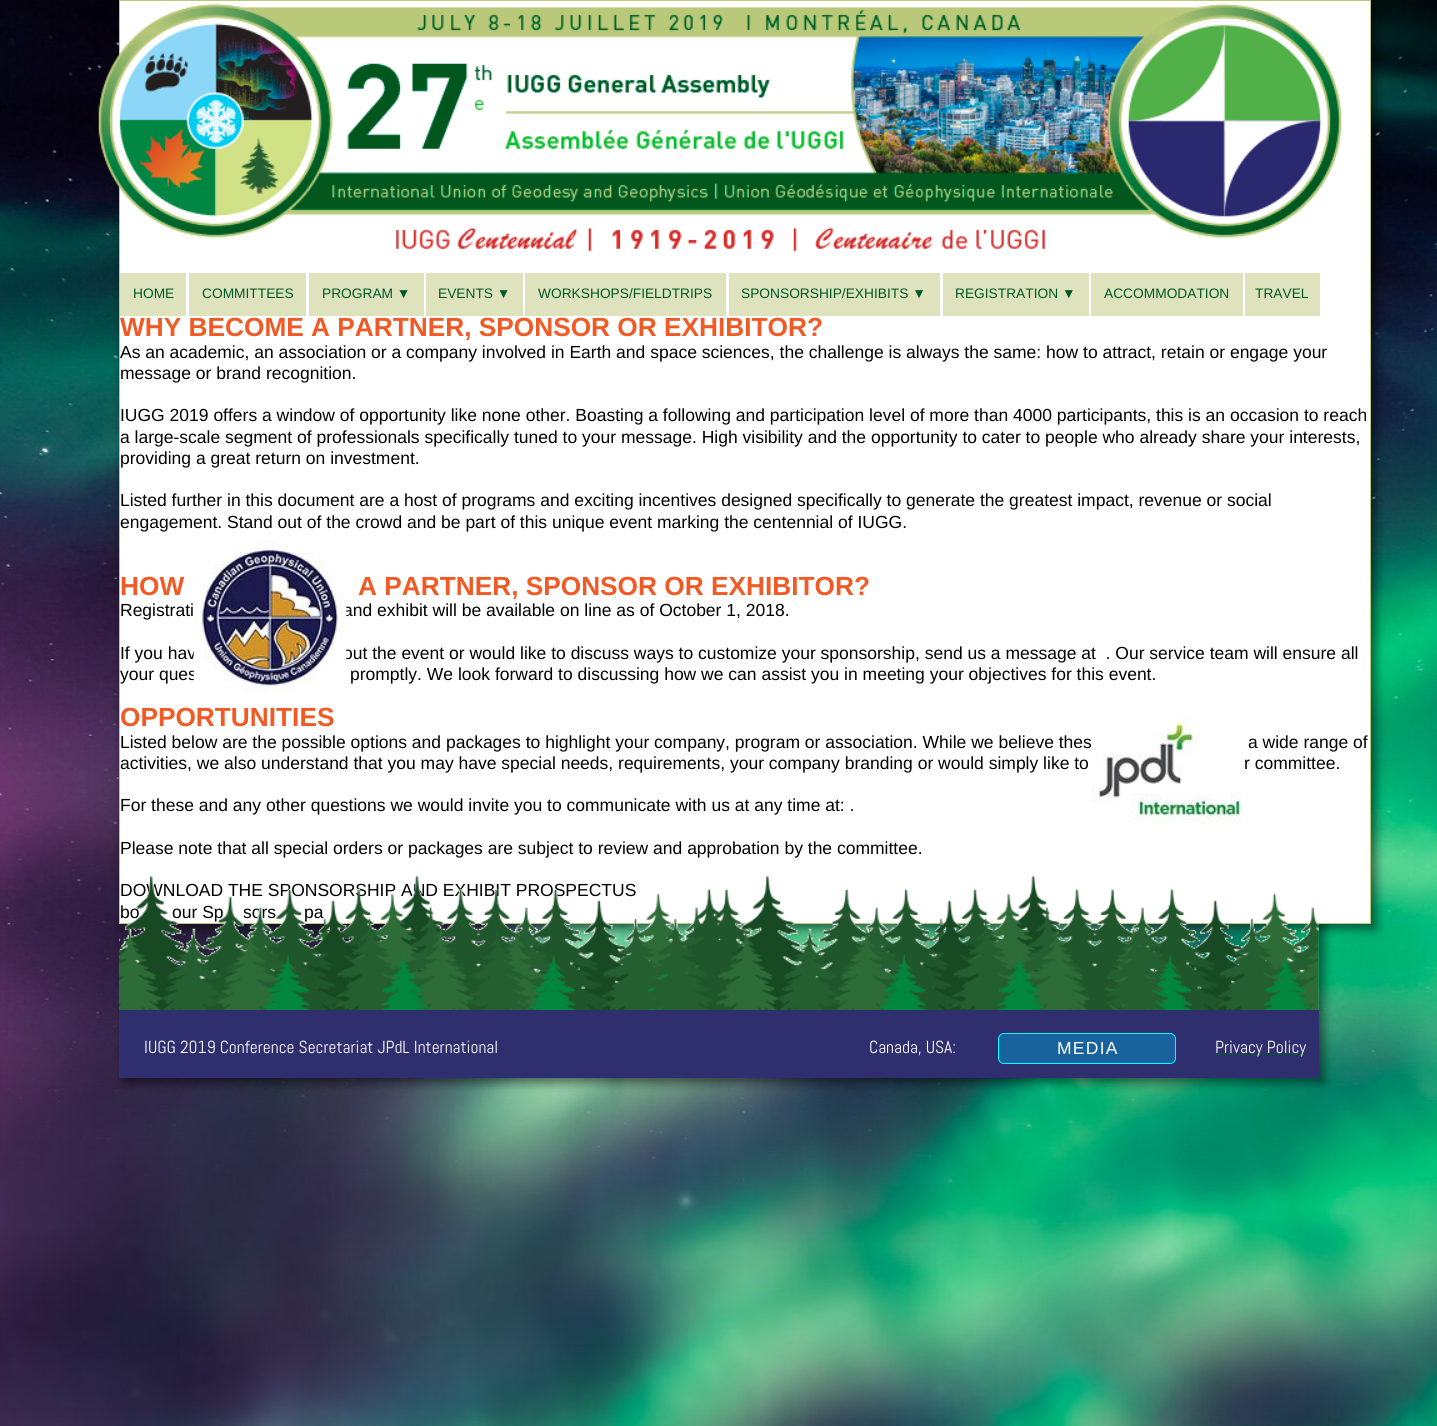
#include <cairo/cairo.h>
#include <math.h>
#include <stddef.h>

typedef struct { double x, y; const char *s; } line_t;
typedef struct { double x, y, w, h; unsigned color; } box_t;
static cairo_t *cr;

static void rgb(unsigned color)
{
	cairo_set_source_rgb(cr, (color >> 16) / 255.0, (color >> 8 & 255) / 255.0, (color & 255) / 255.0);
}

static void tracked(double x, double y, const char *s, double letter, double word)
{
	cairo_move_to(cr, x, y);
	while (*s) {
		char ch[5] = {0};
		int n = 0;
		do ch[n++] = *s++; while ((*s & 0xC0) == 0x80);
		cairo_show_text(cr, ch);
		cairo_rel_move_to(cr, letter + word * (*ch == ' '), 0);
	}
}

static void rrect(double x, double y, double w, double h, double r)
{
	cairo_new_sub_path(cr);
	cairo_arc(cr, x + w - r, y + h - r, r, 0, M_PI / 2);
	cairo_arc(cr, x + r, y + h - r, r, M_PI / 2, M_PI);
	cairo_arc(cr, x + r, y + r, r, M_PI, 1.5 * M_PI);
	cairo_arc(cr, x + w - r, y + r, r, 1.5 * M_PI, 2 * M_PI);
	cairo_close_path(cr);
}

static void soft_shadow(double x, double y, double w, double h, double r, double blur, double alpha)
{
	cairo_push_group_with_content(cr, CAIRO_CONTENT_ALPHA);
	cairo_set_operator(cr, CAIRO_OPERATOR_SOURCE);
	for (int i = 15; i >= -15 && fmin(w, h) + blur * i / 3 > 0; i -= 2) {
		double e = blur * i / 6;
		cairo_set_source_rgba(cr, 0, 0, 0, alpha * erfc((i - 1) / 8.5) / 2);
		rrect(x - e, y - e, w + 2 * e, h + 2 * e, fmax(0, fmin(r + e + blur * .6, fmin(w, h) / 2 + e)));
		cairo_fill(cr);
	}
	cairo_pattern_t *soft = cairo_pop_group(cr);
	cairo_mask(cr, soft);
	cairo_pattern_destroy(soft);
}

static void image(const char *path, double x, double y, double w, double h)
{
	cairo_surface_t *image = cairo_image_surface_create_from_png(path);
	cairo_save(cr);
	cairo_set_source_surface(cr, image, x, y);
	cairo_rectangle(cr, x, y, w, h);
	cairo_fill(cr);
	cairo_restore(cr);
	cairo_surface_destroy(image);
}

int main(void) {
	cairo_surface_t *surface = cairo_image_surface_create(CAIRO_FORMAT_RGB24, 1437, 1426);
	cr = cairo_create(surface);
	cairo_font_options_t *options = cairo_font_options_create();
	cairo_font_options_set_hint_metrics(options, CAIRO_HINT_METRICS_OFF);
	cairo_font_options_set_hint_style(options, CAIRO_HINT_STYLE_NONE);
	cairo_set_font_options(cr, options);
	cairo_set_miter_limit(cr, 4);
	rgb(0xffffff);
	cairo_paint(cr);
	image("img/1.png", 0, 0, 1437, 1426);
	cairo_save(cr);
	cairo_set_fill_rule(cr, CAIRO_FILL_RULE_EVEN_ODD);
	cairo_new_path(cr);
	cairo_move_to(cr, 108, 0);
	cairo_line_to(cr, 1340, 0);
	cairo_line_to(cr, 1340, 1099);
	cairo_line_to(cr, 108, 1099);
	cairo_close_path(cr);
	cairo_move_to(cr, 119, 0);
	cairo_line_to(cr, 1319, 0);
	cairo_line_to(cr, 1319, 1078);
	cairo_line_to(cr, 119, 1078);
	cairo_close_path(cr);
	cairo_clip(cr);
	rgb(0x000000);
	soft_shadow(124, 5, 1200, 1078, 0, 5, 0.5);
	cairo_restore(cr);
	rgb(0x000000);
	soft_shadow(124, 5, 1252, 924, 0, 5, 0.5);
	rgb(0xffffff);
	cairo_rectangle(cr, 119.5, 0.5, 1251, 923);
	cairo_fill_preserve(cr);
	rgb(0xbdc87e);
	cairo_set_line_width(cr, 1);
	cairo_stroke(cr);
	image("img/2.png", 98, 3, 1244, 249);
	{
		static const box_t items[] = {
			{120, 273, 66, 43, 0xdee3be},
			{189, 273, 117, 43, 0xdee3be},
			{309, 273, 115, 43, 0xdee3be},
			{426, 273, 97, 43, 0xdee3be},
			{525, 273, 201, 43, 0xdee3be},
			{729, 273, 211, 43, 0xdee3be},
			{943, 273, 146, 43, 0xdee3be},
			{1091, 273, 152, 43, 0xdee3be},
			{1245, 273, 75, 43, 0xdee3be},
			{119, 1010, 1200, 68, 0x2f2e6f},
			{1215, 1054, 91, 1, 0x005828},
		};
		for (size_t i = 0; i < sizeof items / sizeof *items; i++) {
			rgb(items[i].color);
			cairo_rectangle(cr, items[i].x, items[i].y, items[i].w, items[i].h);
			cairo_fill(cr);
		}
	}
	rgb(0x18639c);
	rrect(998.5, 1033.5, 177, 30, 5.5);
	cairo_fill_preserve(cr);
	rgb(0x00ffff);
	cairo_stroke(cr);
	cairo_select_font_face(cr, "Liberation Sans", CAIRO_FONT_SLANT_NORMAL, CAIRO_FONT_WEIGHT_NORMAL);
	cairo_set_font_size(cr, 13.75);
	rgb(0x005828);
	{
		static const line_t items[] = {
			{133, 298, "HOME"},
			{202, 298, "COMMITTEES"},
			{322, 298, "PROGRAM ▼"},
			{438, 298, "EVENTS ▼"},
			{538, 298, "WORKSHOPS/FIELDTRIPS"},
			{741, 298, "SPONSORSHIP/EXHIBITS ▼"},
			{955, 298, "REGISTRATION ▼"},
			{1104, 298, "ACCOMMODATION"},
			{1255, 298, "TRAVEL"},
		};
		for (size_t i = 0; i < sizeof items / sizeof *items; i++) {
			cairo_move_to(cr, items[i].x, items[i].y);
			cairo_show_text(cr, items[i].s);
		}
	}
	cairo_select_font_face(cr, "Liberation Sans", CAIRO_FONT_SLANT_NORMAL, CAIRO_FONT_WEIGHT_BOLD);
	cairo_set_font_size(cr, 26.25);
	rgb(0xf15a24);
	cairo_move_to(cr, 120, 336);
	cairo_show_text(cr, "WHY BECOME A PARTNER, SPONSOR OR EXHIBITOR?");
	cairo_select_font_face(cr, "Liberation Sans", CAIRO_FONT_SLANT_NORMAL, CAIRO_FONT_WEIGHT_NORMAL);
	cairo_set_font_size(cr, 17.5);
	rgb(0x000000);
	{
		static const line_t items[] = {
			{120, 358, "As an academic, an association or a company involved in Earth and space sciences, the challenge is always the same: how to attract, retain or engage your"},
			{120, 379, "message or brand recognition."},
			{120, 421, "IUGG 2019 offers a window of opportunity like none other. Boasting a following and participation level of more than 4000 participants, this is an occasion to reach"},
			{120, 443, "a large-scale segment of professionals specifically tuned to your message. High visibility and the opportunity to cater to people who already share your interests,"},
			{120, 464, "providing a great return on investment."},
			{120, 506, "Listed further in this document are a host of programs and exciting incentives designed specifically to generate the greatest impact, revenue or social"},
			{120, 528, "engagement. Stand out of the crowd and be part of this unique event marking the centennial of IUGG."},
		};
		for (size_t i = 0; i < sizeof items / sizeof *items; i++) {
			cairo_move_to(cr, items[i].x, items[i].y);
			cairo_show_text(cr, items[i].s);
		}
	}
	cairo_select_font_face(cr, "Liberation Sans", CAIRO_FONT_SLANT_NORMAL, CAIRO_FONT_WEIGHT_BOLD);
	cairo_set_font_size(cr, 26.25);
	rgb(0xf15a24);
	cairo_move_to(cr, 120, 595);
	cairo_show_text(cr, "HOW");
	cairo_move_to(cr, 358, 595);
	cairo_show_text(cr, "A PARTNER, SPONSOR OR EXHIBITOR?");
	cairo_select_font_face(cr, "Liberation Sans", CAIRO_FONT_SLANT_NORMAL, CAIRO_FONT_WEIGHT_NORMAL);
	cairo_set_font_size(cr, 17.5);
	rgb(0x000000);
	{
		static const line_t items[] = {
			{120, 616, "Registrati"},
			{343, 616, "and exhibit will be available on line as of October 1, 2018."},
			{120, 659, "If you hav"},
			{343, 659, "out the event or would like to discuss ways to customize your sponsorship, send us a message at  . Our service team will ensure all"},
			{120, 680, "your ques"},
			{350, 680, "promptly. We look forward to discussing how we can assist you in meeting your objectives for this event."},
		};
		for (size_t i = 0; i < sizeof items / sizeof *items; i++) {
			cairo_move_to(cr, items[i].x, items[i].y);
			cairo_show_text(cr, items[i].s);
		}
	}
	cairo_select_font_face(cr, "Liberation Sans", CAIRO_FONT_SLANT_NORMAL, CAIRO_FONT_WEIGHT_BOLD);
	cairo_set_font_size(cr, 26.25);
	rgb(0xf15a24);
	cairo_move_to(cr, 120, 726);
	cairo_show_text(cr, "OPPORTUNITIES");
	cairo_select_font_face(cr, "Liberation Sans", CAIRO_FONT_SLANT_NORMAL, CAIRO_FONT_WEIGHT_NORMAL);
	cairo_set_font_size(cr, 17.5);
	rgb(0x000000);
	{
		static const line_t items[] = {
			{120, 748, "Listed below are the possible options and packages to highlight your company, program or association. While we believe thes"},
			{1248, 748, "a wide range of"},
			{120, 769, "activities, we also understand that you may have special needs, requirements, your company branding or would simply like to"},
			{1244, 769, "r committee."},
			{120, 811, "For these and any other questions we would invite you to communicate with us at any time at: ."},
			{120, 854, "Please note that all special orders or packages are subject to review and approbation by the committee."},
			{120, 896, "DOWNLOAD THE SPONSORSHIP AND EXHIBIT PROSPECTUS"},
			{120, 918, "bo"},
			{172, 918, "our Sp"},
			{243, 918, "sors"},
			{304, 918, "pa"},
		};
		for (size_t i = 0; i < sizeof items / sizeof *items; i++) {
			cairo_move_to(cr, items[i].x, items[i].y);
			cairo_show_text(cr, items[i].s);
		}
	}
	image("img/3.png", 193, 541, 154, 153);
	image("img/4.png", 193, 541, 154, 153);
	image("img/5.png", 1091, 713, 153, 111);
	image("img/6.png", 118, 876, 1201, 134);
	cairo_select_font_face(cr, "Abel", CAIRO_FONT_SLANT_NORMAL, CAIRO_FONT_WEIGHT_NORMAL);
	rgb(0xffffff);
	{
		static const line_t items[] = {
			{144, 1053, "IUGG 2019 Conference Secretariat JPdL International"},
			{869, 1053, "Canada, USA:"},
			{1215, 1053, "Privacy Policy"},
		};
		for (size_t i = 0; i < sizeof items / sizeof *items; i++) {
			cairo_move_to(cr, items[i].x, items[i].y);
			cairo_show_text(cr, items[i].s);
		}
	}
	cairo_select_font_face(cr, "Liberation Sans", CAIRO_FONT_SLANT_NORMAL, CAIRO_FONT_WEIGHT_NORMAL);
	tracked(1057, 1054, "MEDIA", 1.25, 0);
	cairo_surface_write_to_png(surface, "page.png");
	cairo_font_options_destroy(options);
	cairo_destroy(cr);
	cairo_surface_destroy(surface);
	return 0;
}
